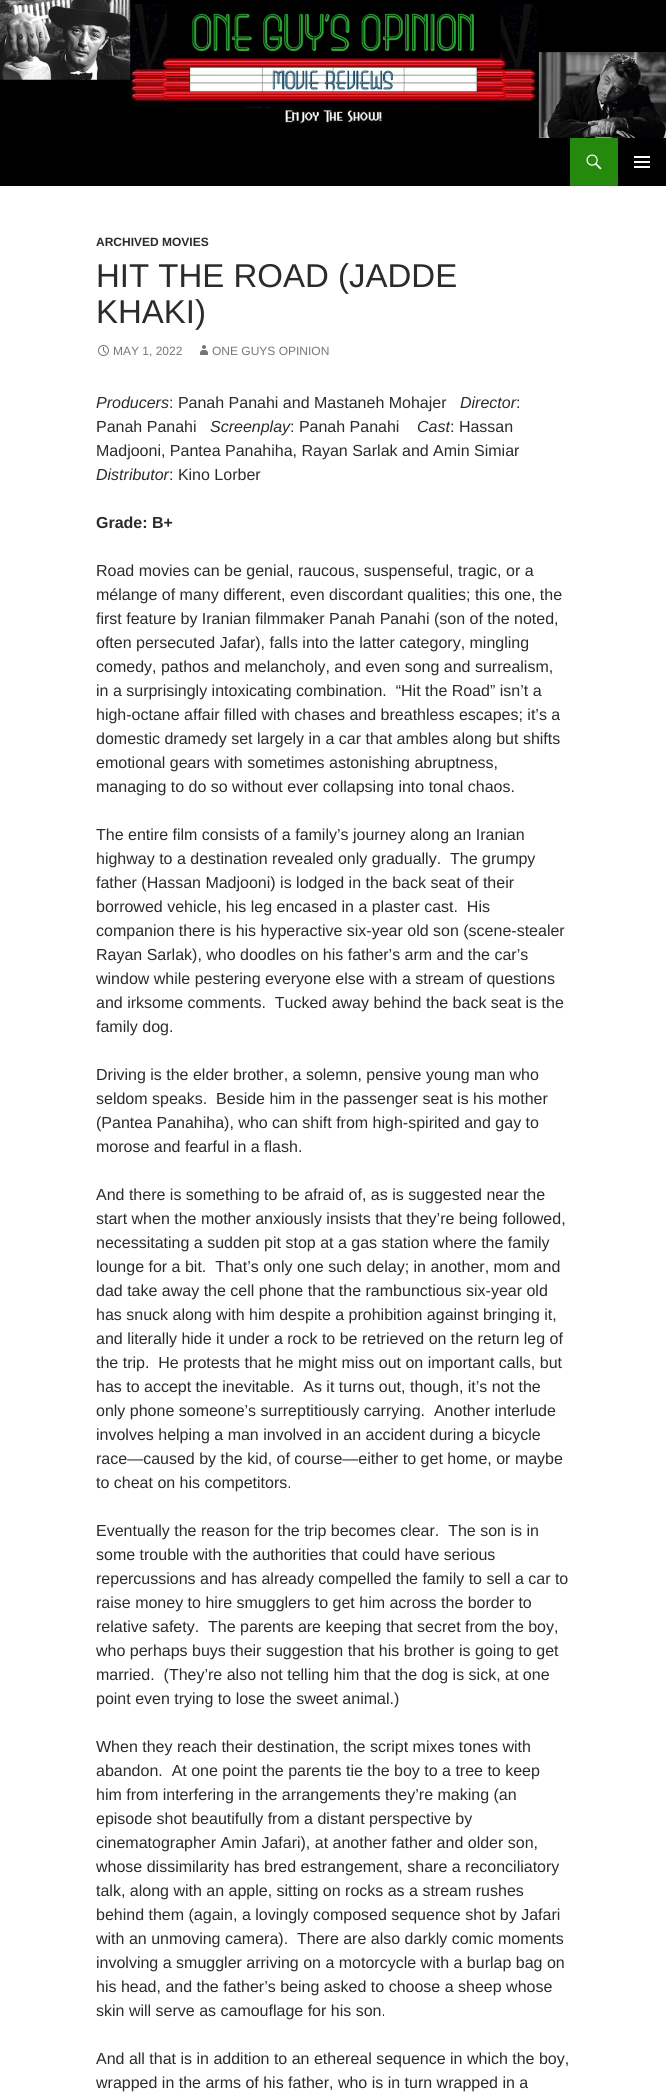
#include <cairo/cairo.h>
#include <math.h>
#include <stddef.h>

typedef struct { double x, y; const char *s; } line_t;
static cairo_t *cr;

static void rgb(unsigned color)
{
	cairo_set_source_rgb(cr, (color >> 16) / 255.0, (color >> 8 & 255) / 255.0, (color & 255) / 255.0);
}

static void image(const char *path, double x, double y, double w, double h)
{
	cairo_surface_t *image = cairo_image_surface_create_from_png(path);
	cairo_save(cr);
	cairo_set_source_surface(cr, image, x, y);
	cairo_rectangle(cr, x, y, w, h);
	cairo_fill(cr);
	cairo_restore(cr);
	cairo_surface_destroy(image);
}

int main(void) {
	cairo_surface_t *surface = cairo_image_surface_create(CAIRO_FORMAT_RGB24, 666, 2096);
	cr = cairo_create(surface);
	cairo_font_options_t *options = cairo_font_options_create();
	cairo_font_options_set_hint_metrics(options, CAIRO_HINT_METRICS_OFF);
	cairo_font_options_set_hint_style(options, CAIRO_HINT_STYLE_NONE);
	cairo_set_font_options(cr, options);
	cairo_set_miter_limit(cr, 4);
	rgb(0xffffff);
	cairo_paint(cr);
	image("img/1.png", 0, 0, 666, 138);
	rgb(0x000000);
	cairo_rectangle(cr, 0, 138, 666, 48);
	cairo_fill(cr);
	rgb(0x24890d);
	cairo_rectangle(cr, 570, 138, 48, 48);
	cairo_fill(cr);
	image("img/2.png", 586, 154, 16, 16);
	image("img/3.png", 634, 156, 16, 12);
	image("img/4.png", 98, 345, 11, 11);
	image("img/5.png", 200, 345, 8, 10);
	cairo_select_font_face(cr, "Liberation Sans", CAIRO_FONT_SLANT_NORMAL, CAIRO_FONT_WEIGHT_BOLD);
	cairo_set_font_size(cr, 12);
	rgb(0x2b2b2b);
	cairo_move_to(cr, 96, 246);
	cairo_show_text(cr, "ARCHIVED MOVIES");
	cairo_select_font_face(cr, "Liberation Sans", CAIRO_FONT_SLANT_NORMAL, CAIRO_FONT_WEIGHT_NORMAL);
	cairo_set_font_size(cr, 33);
	cairo_move_to(cr, 96, 287);
	cairo_show_text(cr, "HIT THE ROAD (JADDE");
	cairo_move_to(cr, 96, 323);
	cairo_show_text(cr, "KHAKI)");
	cairo_set_font_size(cr, 12);
	rgb(0x767676);
	cairo_move_to(cr, 113, 355);
	cairo_show_text(cr, "MAY 1, 2022");
	cairo_move_to(cr, 212, 355);
	cairo_show_text(cr, "ONE GUYS OPINION");
	cairo_select_font_face(cr, "Liberation Sans", CAIRO_FONT_SLANT_ITALIC, CAIRO_FONT_WEIGHT_NORMAL);
	cairo_set_font_size(cr, 16);
	rgb(0x2b2b2b);
	cairo_move_to(cr, 96, 408);
	cairo_show_text(cr, "Producers");
	cairo_select_font_face(cr, "Liberation Sans", CAIRO_FONT_SLANT_NORMAL, CAIRO_FONT_WEIGHT_NORMAL);
	cairo_move_to(cr, 169, 408);
	cairo_show_text(cr, ": Panah Panahi and Mastaneh Mohajer");
	cairo_select_font_face(cr, "Liberation Sans", CAIRO_FONT_SLANT_ITALIC, CAIRO_FONT_WEIGHT_NORMAL);
	cairo_move_to(cr, 460, 408);
	cairo_show_text(cr, "Director");
	cairo_select_font_face(cr, "Liberation Sans", CAIRO_FONT_SLANT_NORMAL, CAIRO_FONT_WEIGHT_NORMAL);
	cairo_move_to(cr, 516, 408);
	cairo_show_text(cr, ":");
	cairo_move_to(cr, 96, 432);
	cairo_show_text(cr, "Panah Panahi");
	cairo_select_font_face(cr, "Liberation Sans", CAIRO_FONT_SLANT_ITALIC, CAIRO_FONT_WEIGHT_NORMAL);
	cairo_move_to(cr, 210, 432);
	cairo_show_text(cr, "Screenplay");
	cairo_select_font_face(cr, "Liberation Sans", CAIRO_FONT_SLANT_NORMAL, CAIRO_FONT_WEIGHT_NORMAL);
	cairo_move_to(cr, 290, 432);
	cairo_show_text(cr, ": Panah Panahi");
	cairo_select_font_face(cr, "Liberation Sans", CAIRO_FONT_SLANT_ITALIC, CAIRO_FONT_WEIGHT_NORMAL);
	cairo_move_to(cr, 417, 432);
	cairo_show_text(cr, "Cast");
	cairo_select_font_face(cr, "Liberation Sans", CAIRO_FONT_SLANT_NORMAL, CAIRO_FONT_WEIGHT_NORMAL);
	cairo_move_to(cr, 450, 432);
	cairo_show_text(cr, ": Hassan");
	cairo_move_to(cr, 96, 456);
	cairo_show_text(cr, "Madjooni, Pantea Panahiha, Rayan Sarlak and Amin Simiar");
	cairo_select_font_face(cr, "Liberation Sans", CAIRO_FONT_SLANT_ITALIC, CAIRO_FONT_WEIGHT_NORMAL);
	cairo_move_to(cr, 96, 480);
	cairo_show_text(cr, "Distributor");
	cairo_select_font_face(cr, "Liberation Sans", CAIRO_FONT_SLANT_NORMAL, CAIRO_FONT_WEIGHT_NORMAL);
	cairo_move_to(cr, 169, 480);
	cairo_show_text(cr, ": Kino Lorber");
	cairo_select_font_face(cr, "Liberation Sans", CAIRO_FONT_SLANT_NORMAL, CAIRO_FONT_WEIGHT_BOLD);
	cairo_move_to(cr, 96, 528);
	cairo_show_text(cr, "Grade: B+");
	cairo_select_font_face(cr, "Liberation Sans", CAIRO_FONT_SLANT_NORMAL, CAIRO_FONT_WEIGHT_NORMAL);
	{
		static const line_t items[] = {
			{96, 576, "Road movies can be genial, raucous, suspenseful, tragic, or a"},
			{96, 600, "mélange of many different, even discordant qualities; this one, the"},
			{96, 624, "first feature by Iranian filmmaker Panah Panahi (son of the noted,"},
			{96, 648, "often persecuted Jafar), falls into the latter category, mingling"},
			{96, 672, "comedy, pathos and melancholy, and even song and surrealism,"},
			{96, 696, "in a surprisingly intoxicating combination.  “Hit the Road” isn’t a"},
			{96, 720, "high-octane affair filled with chases and breathless escapes; it’s a"},
			{96, 744, "domestic dramedy set largely in a car that ambles along but shifts"},
			{96, 768, "emotional gears with sometimes astonishing abruptness,"},
			{96, 792, "managing to do so without ever collapsing into tonal chaos."},
			{96, 840, "The entire film consists of a family’s journey along an Iranian"},
			{96, 864, "highway to a destination revealed only gradually.  The grumpy"},
			{96, 888, "father (Hassan Madjooni) is lodged in the back seat of their"},
			{96, 912, "borrowed vehicle, his leg encased in a plaster cast.  His"},
			{96, 936, "companion there is his hyperactive six-year old son (scene-stealer"},
			{96, 960, "Rayan Sarlak), who doodles on his father’s arm and the car’s"},
			{96, 984, "window while pestering everyone else with a stream of questions"},
			{96, 1008, "and irksome comments.  Tucked away behind the back seat is the"},
			{96, 1032, "family dog."},
			{96, 1080, "Driving is the elder brother, a solemn, pensive young man who"},
			{96, 1104, "seldom speaks.  Beside him in the passenger seat is his mother"},
			{96, 1128, "(Pantea Panahiha), who can shift from high-spirited and gay to"},
			{96, 1152, "morose and fearful in a flash."},
			{96, 1200, "And there is something to be afraid of, as is suggested near the"},
			{96, 1224, "start when the mother anxiously insists that they’re being followed,"},
			{96, 1248, "necessitating a sudden pit stop at a gas station where the family"},
			{96, 1272, "lounge for a bit.  That’s only one such delay; in another, mom and"},
			{96, 1296, "dad take away the cell phone that the rambunctious six-year old"},
			{96, 1320, "has snuck along with him despite a prohibition against bringing it,"},
			{96, 1344, "and literally hide it under a rock to be retrieved on the return leg of"},
			{96, 1368, "the trip.  He protests that he might miss out on important calls, but"},
			{96, 1392, "has to accept the inevitable.  As it turns out, though, it’s not the"},
			{96, 1416, "only phone someone’s surreptitiously carrying.  Another interlude"},
			{96, 1440, "involves helping a man involved in an accident during a bicycle"},
			{96, 1464, "race—caused by the kid, of course—either to get home, or maybe"},
			{96, 1488, "to cheat on his competitors."},
			{96, 1536, "Eventually the reason for the trip becomes clear.  The son is in"},
			{96, 1560, "some trouble with the authorities that could have serious"},
			{96, 1584, "repercussions and has already compelled the family to sell a car to"},
			{96, 1608, "raise money to hire smugglers to get him across the border to"},
			{96, 1632, "relative safety.  The parents are keeping that secret from the boy,"},
			{96, 1656, "who perhaps buys their suggestion that his brother is going to get"},
			{96, 1680, "married.  (They’re also not telling him that the dog is sick, at one"},
			{96, 1704, "point even trying to lose the sweet animal.)"},
			{96, 1752, "When they reach their destination, the script mixes tones with"},
			{96, 1776, "abandon.  At one point the parents tie the boy to a tree to keep"},
			{96, 1800, "him from interfering in the arrangements they’re making (an"},
			{96, 1824, "episode shot beautifully from a distant perspective by"},
			{96, 1848, "cinematographer Amin Jafari), at another father and older son,"},
			{96, 1872, "whose dissimilarity has bred estrangement, share a reconciliatory"},
			{96, 1896, "talk, along with an apple, sitting on rocks as a stream rushes"},
			{96, 1920, "behind them (again, a lovingly composed sequence shot by Jafari"},
			{96, 1944, "with an unmoving camera).  There are also darkly comic moments"},
			{96, 1968, "involving a smuggler arriving on a motorcycle with a burlap bag on"},
			{96, 1992, "his head, and the father’s being asked to choose a sheep whose"},
			{96, 2016, "skin will serve as camouflage for his son."},
			{96, 2064, "And all that is in addition to an ethereal sequence in which the boy,"},
			{96, 2088, "wrapped in the arms of his father, who is in turn wrapped in a"},
		};
		for (size_t i = 0; i < sizeof items / sizeof *items; i++) {
			cairo_move_to(cr, items[i].x, items[i].y);
			cairo_show_text(cr, items[i].s);
		}
	}
	cairo_surface_write_to_png(surface, "page.png");
	cairo_font_options_destroy(options);
	cairo_destroy(cr);
	cairo_surface_destroy(surface);
	return 0;
}
